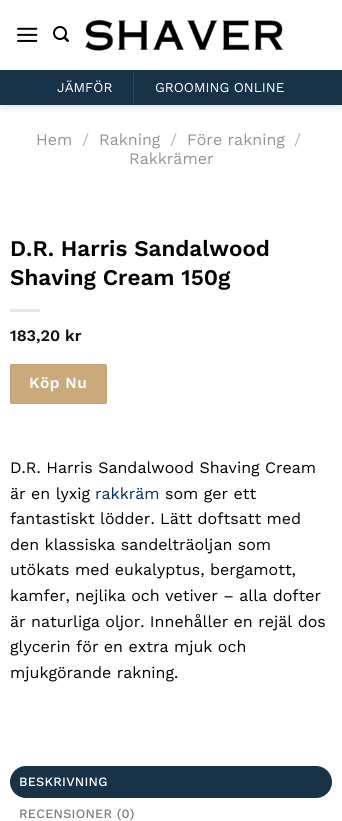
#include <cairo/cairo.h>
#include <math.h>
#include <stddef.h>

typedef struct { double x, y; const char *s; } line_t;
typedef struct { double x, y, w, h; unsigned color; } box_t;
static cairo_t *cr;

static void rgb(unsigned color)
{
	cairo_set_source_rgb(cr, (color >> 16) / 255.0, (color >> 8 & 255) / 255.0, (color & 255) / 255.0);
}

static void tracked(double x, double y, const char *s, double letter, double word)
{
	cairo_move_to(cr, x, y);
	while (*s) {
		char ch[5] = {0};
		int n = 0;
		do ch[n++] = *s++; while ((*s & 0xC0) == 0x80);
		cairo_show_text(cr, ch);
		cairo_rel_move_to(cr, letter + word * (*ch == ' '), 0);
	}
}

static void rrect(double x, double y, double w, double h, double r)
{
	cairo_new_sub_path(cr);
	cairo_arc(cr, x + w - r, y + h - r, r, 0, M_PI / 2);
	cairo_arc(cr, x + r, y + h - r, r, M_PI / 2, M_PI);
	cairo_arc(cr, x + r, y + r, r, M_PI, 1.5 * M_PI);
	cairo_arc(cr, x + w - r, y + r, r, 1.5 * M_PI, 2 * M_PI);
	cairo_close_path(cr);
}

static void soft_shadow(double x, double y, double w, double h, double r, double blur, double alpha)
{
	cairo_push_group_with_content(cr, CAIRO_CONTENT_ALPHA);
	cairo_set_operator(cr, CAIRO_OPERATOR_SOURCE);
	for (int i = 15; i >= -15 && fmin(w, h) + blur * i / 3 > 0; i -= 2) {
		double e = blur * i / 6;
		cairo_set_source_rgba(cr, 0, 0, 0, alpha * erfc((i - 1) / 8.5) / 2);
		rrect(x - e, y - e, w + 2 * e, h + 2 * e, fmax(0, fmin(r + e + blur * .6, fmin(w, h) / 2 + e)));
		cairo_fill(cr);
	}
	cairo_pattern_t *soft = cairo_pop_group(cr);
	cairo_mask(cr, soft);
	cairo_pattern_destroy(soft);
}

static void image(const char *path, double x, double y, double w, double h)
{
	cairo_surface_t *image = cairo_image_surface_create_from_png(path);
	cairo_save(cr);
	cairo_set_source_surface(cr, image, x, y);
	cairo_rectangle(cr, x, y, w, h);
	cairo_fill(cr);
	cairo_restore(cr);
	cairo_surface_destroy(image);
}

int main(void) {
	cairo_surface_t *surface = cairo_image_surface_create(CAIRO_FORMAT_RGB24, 342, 821);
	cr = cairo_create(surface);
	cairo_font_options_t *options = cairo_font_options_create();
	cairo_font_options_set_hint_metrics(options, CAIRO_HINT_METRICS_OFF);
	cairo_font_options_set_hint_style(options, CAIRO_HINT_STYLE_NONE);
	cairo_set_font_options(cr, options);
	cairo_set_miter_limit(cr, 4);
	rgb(0xffffff);
	cairo_paint(cr);
	cairo_save(cr);
	cairo_rectangle(cr, 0, 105, 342, 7);
	cairo_clip(cr);
	rgb(0x000000);
	soft_shadow(1, 1, 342, 105, 0, 5, 0.15);
	cairo_restore(cr);
	image("img/1.png", 17, 27, 21, 15);
	image("img/2.png", 53, 26, 16, 16);
	image("img/3.png", 85, 19, 199, 32);
	{
		static const box_t items[] = {
			{0, 70, 342, 35, 0x183248},
			{133, 73, 1, 30, 0x2f475a},
			{10, 309, 30, 3, 0xe6e6e6},
		};
		for (size_t i = 0; i < sizeof items / sizeof *items; i++) {
			rgb(items[i].color);
			cairo_rectangle(cr, items[i].x, items[i].y, items[i].w, items[i].h);
			cairo_fill(cr);
		}
	}
	rgb(0xcaa97b);
	rrect(10, 364, 97, 40, 2);
	cairo_fill(cr);
	cairo_rectangle(cr, 10.5, 364.5, 96, 39);
	cairo_set_source_rgba(cr, 0, 0, 0, 0.05);
	cairo_set_line_width(cr, 1);
	cairo_stroke(cr);
	rgb(0x183248);
	rrect(10, 766, 322, 32, 16);
	cairo_fill(cr);
	cairo_select_font_face(cr, "Work Sans", CAIRO_FONT_SLANT_NORMAL, CAIRO_FONT_WEIGHT_NORMAL);
	cairo_set_font_size(cr, 13.5);
	rgb(0xffffff);
	cairo_move_to(cr, 57, 92);
	cairo_show_text(cr, "JÄMFÖR");
	cairo_move_to(cr, 155, 92);
	cairo_show_text(cr, "GROOMING ONLINE");
	cairo_set_font_size(cr, 16);
	rgb(0x949494);
	cairo_move_to(cr, 36, 145);
	cairo_show_text(cr, "Hem");
	rgb(0xb2b2b2);
	cairo_move_to(cr, 82, 145);
	cairo_show_text(cr, "/");
	rgb(0x949494);
	cairo_move_to(cr, 99, 145);
	cairo_show_text(cr, "Rakning");
	rgb(0xb2b2b2);
	cairo_move_to(cr, 170, 145);
	cairo_show_text(cr, "/");
	rgb(0x949494);
	cairo_move_to(cr, 187, 145);
	cairo_show_text(cr, "Före rakning");
	rgb(0xb2b2b2);
	cairo_move_to(cr, 294, 145);
	cairo_show_text(cr, "/");
	rgb(0x949494);
	cairo_move_to(cr, 129, 164);
	cairo_show_text(cr, "Rakkrämer");
	cairo_select_font_face(cr, "Work Sans SemiBold", CAIRO_FONT_SLANT_NORMAL, CAIRO_FONT_WEIGHT_NORMAL);
	cairo_set_font_size(cr, 22.4);
	rgb(0x000000);
	cairo_move_to(cr, 10, 256);
	cairo_show_text(cr, "D.R. Harris Sandalwood");
	cairo_move_to(cr, 10, 285);
	cairo_show_text(cr, "Shaving Cream 150g");
	cairo_set_font_size(cr, 16);
	rgb(0x111111);
	cairo_move_to(cr, 10, 341);
	cairo_show_text(cr, "183,20 kr");
	cairo_set_font_size(cr, 15.5);
	rgb(0xffffff);
	tracked(29, 388, "Köp Nu", 0.5, 0);
	cairo_select_font_face(cr, "Work Sans", CAIRO_FONT_SLANT_NORMAL, CAIRO_FONT_WEIGHT_NORMAL);
	cairo_set_font_size(cr, 16);
	rgb(0x000000);
	cairo_move_to(cr, 10, 473);
	cairo_show_text(cr, "D.R. Harris Sandalwood Shaving Cream");
	cairo_move_to(cr, 10, 499);
	cairo_show_text(cr, "är en lyxig");
	rgb(0x023059);
	cairo_move_to(cr, 95, 499);
	cairo_show_text(cr, "rakkräm");
	rgb(0x000000);
	{
		static const line_t items[] = {
			{165, 499, "som ger ett"},
			{10, 524, "fantastiskt lödder. Lätt doftsatt med"},
			{10, 550, "den klassiska sandelträoljan som"},
			{10, 575, "utökats med eukalyptus, bergamott,"},
			{10, 601, "kamfer, nejlika och vetiver – alla dofter"},
			{10, 627, "är naturliga oljor. Innehåller en rejäl dos"},
			{10, 652, "glycerin för en extra mjuk och"},
			{10, 678, "mjukgörande rakning."},
		};
		for (size_t i = 0; i < sizeof items / sizeof *items; i++) {
			cairo_move_to(cr, items[i].x, items[i].y);
			cairo_show_text(cr, items[i].s);
		}
	}
	cairo_select_font_face(cr, "Work Sans Medium", CAIRO_FONT_SLANT_NORMAL, CAIRO_FONT_WEIGHT_NORMAL);
	cairo_set_font_size(cr, 12.75);
	rgb(0xffffff);
	tracked(19, 786, "BESKRIVNING", 0.25, 0);
	rgb(0x7d7d7d);
	tracked(19, 818, "RECENSIONER (0)", 0.25, 0);
	cairo_surface_write_to_png(surface, "page.png");
	cairo_font_options_destroy(options);
	cairo_destroy(cr);
	cairo_surface_destroy(surface);
	return 0;
}
